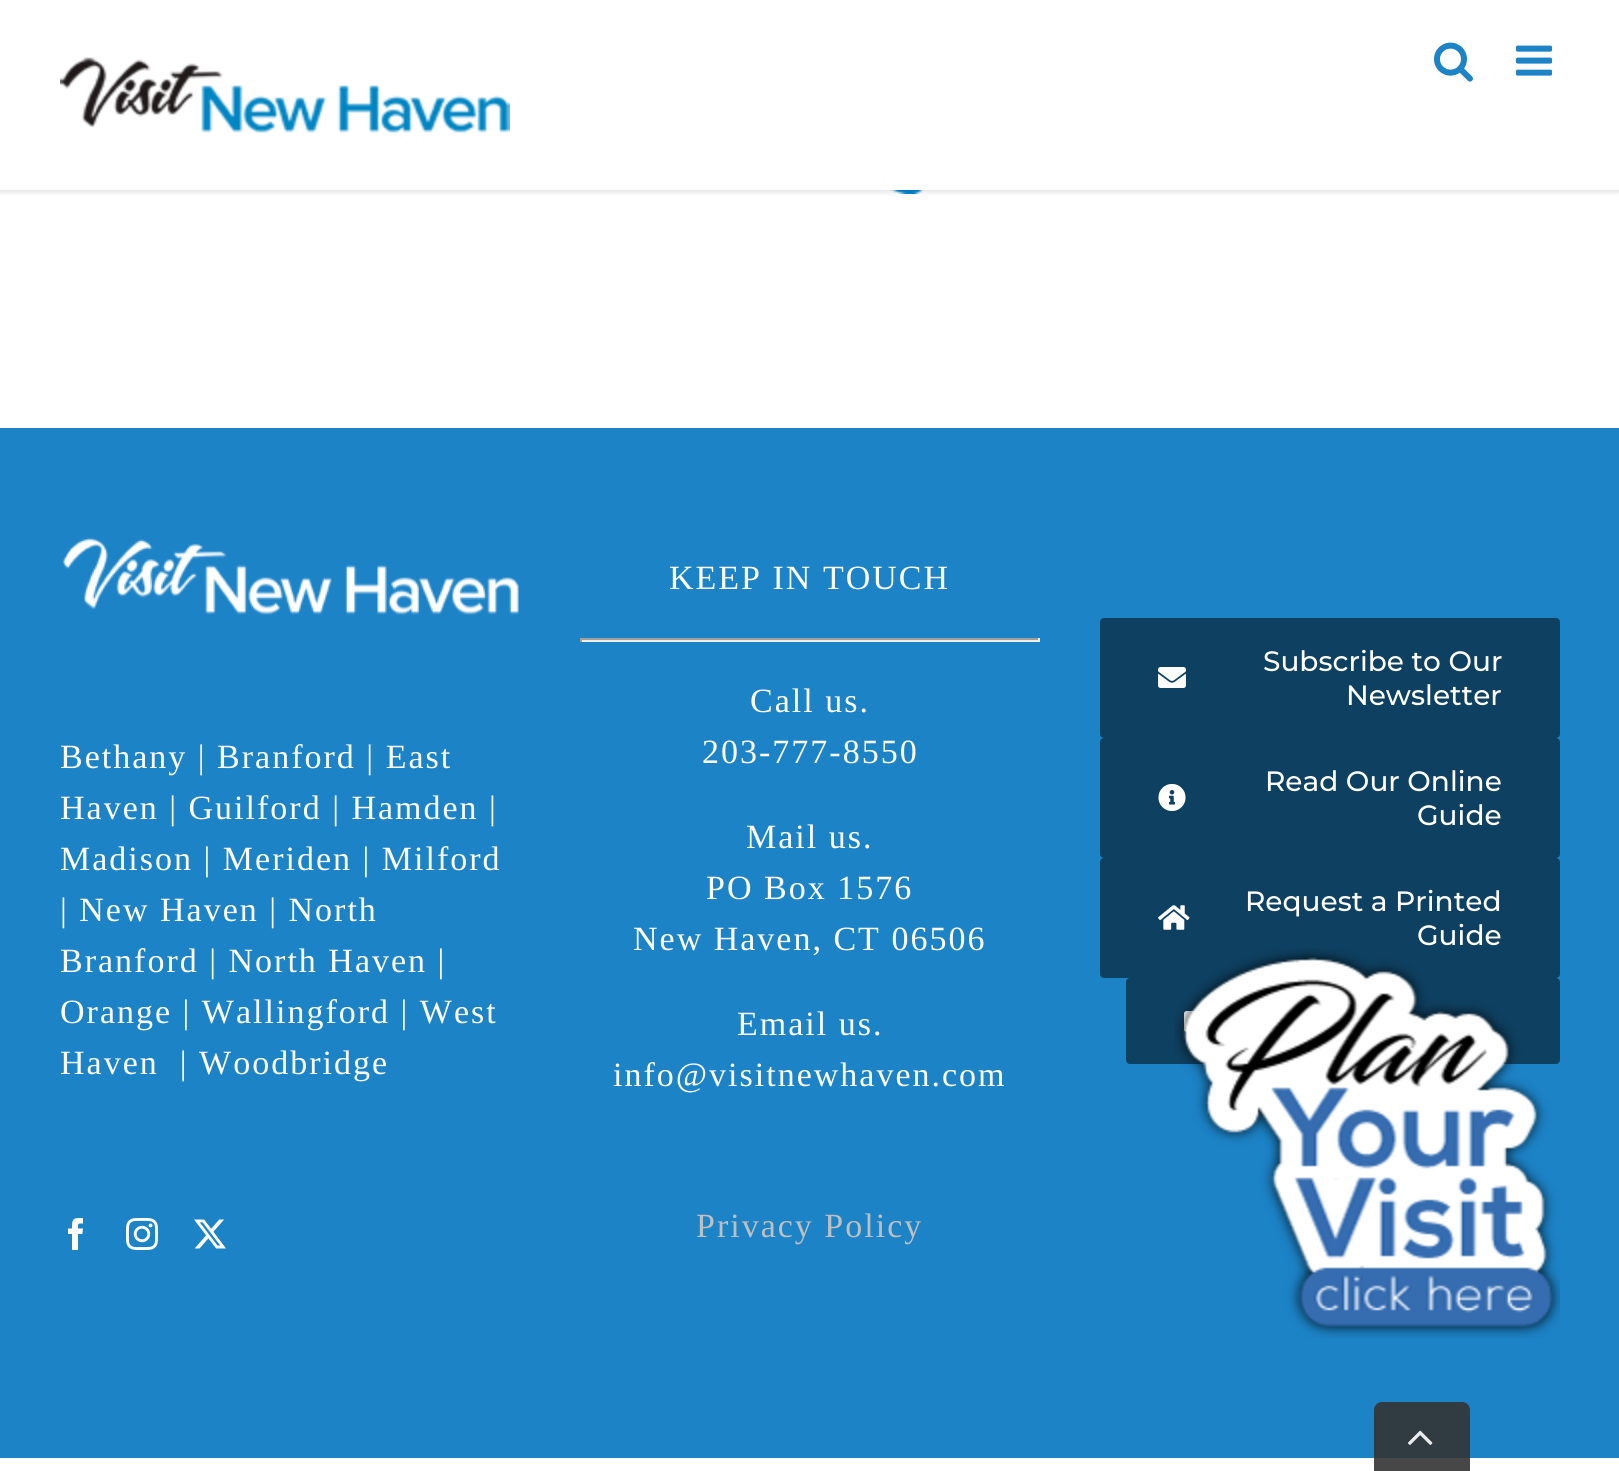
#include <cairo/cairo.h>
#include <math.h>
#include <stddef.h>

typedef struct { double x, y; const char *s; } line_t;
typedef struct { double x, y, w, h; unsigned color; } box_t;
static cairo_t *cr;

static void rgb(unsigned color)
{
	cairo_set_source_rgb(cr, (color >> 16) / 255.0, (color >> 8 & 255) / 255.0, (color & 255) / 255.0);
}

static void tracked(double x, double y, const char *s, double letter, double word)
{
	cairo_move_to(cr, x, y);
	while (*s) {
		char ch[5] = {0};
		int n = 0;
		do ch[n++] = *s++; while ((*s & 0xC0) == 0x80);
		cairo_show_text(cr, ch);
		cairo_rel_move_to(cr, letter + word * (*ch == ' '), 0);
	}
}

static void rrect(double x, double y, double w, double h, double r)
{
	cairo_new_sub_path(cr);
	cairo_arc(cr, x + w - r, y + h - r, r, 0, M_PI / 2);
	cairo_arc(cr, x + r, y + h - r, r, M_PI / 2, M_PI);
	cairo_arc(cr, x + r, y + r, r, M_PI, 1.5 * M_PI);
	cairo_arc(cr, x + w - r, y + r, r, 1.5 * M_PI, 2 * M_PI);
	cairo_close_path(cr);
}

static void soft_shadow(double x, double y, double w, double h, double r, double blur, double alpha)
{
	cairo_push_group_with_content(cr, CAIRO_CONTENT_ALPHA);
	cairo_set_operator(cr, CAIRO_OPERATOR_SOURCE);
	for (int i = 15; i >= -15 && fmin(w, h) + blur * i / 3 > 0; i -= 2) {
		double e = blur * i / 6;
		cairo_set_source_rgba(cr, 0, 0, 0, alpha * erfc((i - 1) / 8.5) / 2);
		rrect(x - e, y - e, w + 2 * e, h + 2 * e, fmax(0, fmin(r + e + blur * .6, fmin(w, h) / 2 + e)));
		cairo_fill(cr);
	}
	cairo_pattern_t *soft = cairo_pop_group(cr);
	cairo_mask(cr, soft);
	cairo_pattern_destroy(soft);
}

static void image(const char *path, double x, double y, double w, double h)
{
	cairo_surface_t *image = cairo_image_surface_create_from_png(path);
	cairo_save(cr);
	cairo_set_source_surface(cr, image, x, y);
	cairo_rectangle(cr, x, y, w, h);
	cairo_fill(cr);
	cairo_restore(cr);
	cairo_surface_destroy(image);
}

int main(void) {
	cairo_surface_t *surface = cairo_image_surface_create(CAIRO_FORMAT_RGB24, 1619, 1471);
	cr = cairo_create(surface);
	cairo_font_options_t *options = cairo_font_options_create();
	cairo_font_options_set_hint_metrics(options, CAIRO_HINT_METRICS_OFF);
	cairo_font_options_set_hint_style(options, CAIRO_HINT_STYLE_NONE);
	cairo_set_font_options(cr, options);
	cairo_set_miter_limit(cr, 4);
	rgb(0xffffff);
	cairo_paint(cr);
	image("img/4.png", 889, 190, 35, 4);
	rgb(0x000000);
	soft_shadow(0, 2, 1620, 190, 0, 3, 0.12);
	rgb(0xffffff);
	cairo_rectangle(cr, 0, 0, 1619, 190);
	cairo_fill(cr);
	image("img/1.png", 60, 57, 450, 76);
	image("img/2.png", 1434, 42, 39, 40);
	image("img/3.png", 1516, 45, 36, 31);
	rgb(0x1c83c7);
	cairo_rectangle(cr, 0, 428, 1619, 1030);
	cairo_fill(cr);
	image("img/5.png", 62, 537, 457, 78);
	image("img/6.png", 68, 1218, 15, 32);
	image("img/7.png", 126, 1218, 32, 32);
	image("img/8.png", 194, 1219, 32, 30);
	{
		static const box_t items[] = {
			{580, 638, 460, 2, 0x9f9f9f},
			{1038, 638, 2, 4, 0xeeeeee},
			{580, 640, 460, 2, 0xeeeeee},
			{580, 638, 2, 4, 0x9f9f9f},
		};
		for (size_t i = 0; i < sizeof items / sizeof *items; i++) {
			rgb(items[i].color);
			cairo_rectangle(cr, items[i].x, items[i].y, items[i].w, items[i].h);
			cairo_fill(cr);
		}
	}
	rgb(0x0e4061);
	rrect(1100, 618, 460, 120, 4);
	cairo_fill(cr);
	image("img/9.png", 1158, 667, 28, 21);
	rrect(1100, 738, 460, 120, 4);
	cairo_fill(cr);
	image("img/10.png", 1158, 784, 28, 27);
	rrect(1100, 858, 460, 120, 4);
	cairo_fill(cr);
	image("img/11.png", 1158, 905, 32, 25);
	rrect(1126, 978, 434, 86, 4);
	cairo_fill(cr);
	image("img/12.png", 1184, 1011, 12, 21);
	image("img/13.png", 1174, 948, 386, 390);
	cairo_set_source_rgba(cr, 0.2, 0.2, 0.2, 0.9);
	cairo_new_path(cr);
	cairo_move_to(cr, 1382, 1402);
	cairo_line_to(cr, 1462, 1402);
	cairo_curve_to(cr, 1466.5, 1402, 1470, 1405.5, 1470, 1410);
	cairo_line_to(cr, 1470, 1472);
	cairo_line_to(cr, 1374, 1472);
	cairo_line_to(cr, 1374, 1410);
	cairo_curve_to(cr, 1374, 1405.5, 1377.5, 1402, 1382, 1402);
	cairo_close_path(cr);
	cairo_fill(cr);
	image("img/14.png", 1408, 1430, 25, 15);
	cairo_select_font_face(cr, "Liberation Serif", CAIRO_FONT_SLANT_NORMAL, CAIRO_FONT_WEIGHT_NORMAL);
	cairo_set_font_size(cr, 34);
	rgb(0xffffff);
	{
		static const line_t items[] = {
			{60, 768, "Bethany | Branford | East"},
			{60, 819, "Haven | Guilford | Hamden |"},
			{60, 870, "Madison | Meriden | Milford"},
			{60, 921, "| New Haven | North"},
			{60, 972, "Branford | North Haven |"},
			{60, 1023, "Orange | Wallingford | West"},
			{60, 1074, "Haven  | Woodbridge"},
			{669, 589, "KEEP IN TOUCH"},
			{750, 712, "Call us."},
			{702, 763, "203-777-8550"},
			{746, 848, "Mail us."},
			{706, 899, "PO Box 1576"},
			{633, 950, "New Haven, CT 06506"},
			{737, 1035, "Email us."},
			{613, 1086, "info@visitnewhaven.com"},
		};
		for (size_t i = 0; i < sizeof items / sizeof *items; i++) {
			tracked(items[i].x, items[i].y, items[i].s, 2, 0);
		}
	}
	rgb(0xbfbfbf);
	tracked(696, 1237, "Privacy Policy", 2, 0);
	cairo_select_font_face(cr, "Montserrat Thin", CAIRO_FONT_SLANT_NORMAL, CAIRO_FONT_WEIGHT_NORMAL);
	cairo_set_font_size(cr, 28);
	rgb(0xffffff);
	{
		static const line_t items[] = {
			{1263, 671, "Subscribe to Our"},
			{1346, 705, "Newsletter"},
			{1265, 791, "Read Our Online"},
			{1417, 825, "Guide"},
			{1245, 911, "Request a Printed"},
			{1417, 945, "Guide"},
		};
		for (size_t i = 0; i < sizeof items / sizeof *items; i++) {
			cairo_move_to(cr, items[i].x, items[i].y);
			cairo_show_text(cr, items[i].s);
		}
	}
	cairo_surface_write_to_png(surface, "page.png");
	cairo_font_options_destroy(options);
	cairo_destroy(cr);
	cairo_surface_destroy(surface);
	return 0;
}
